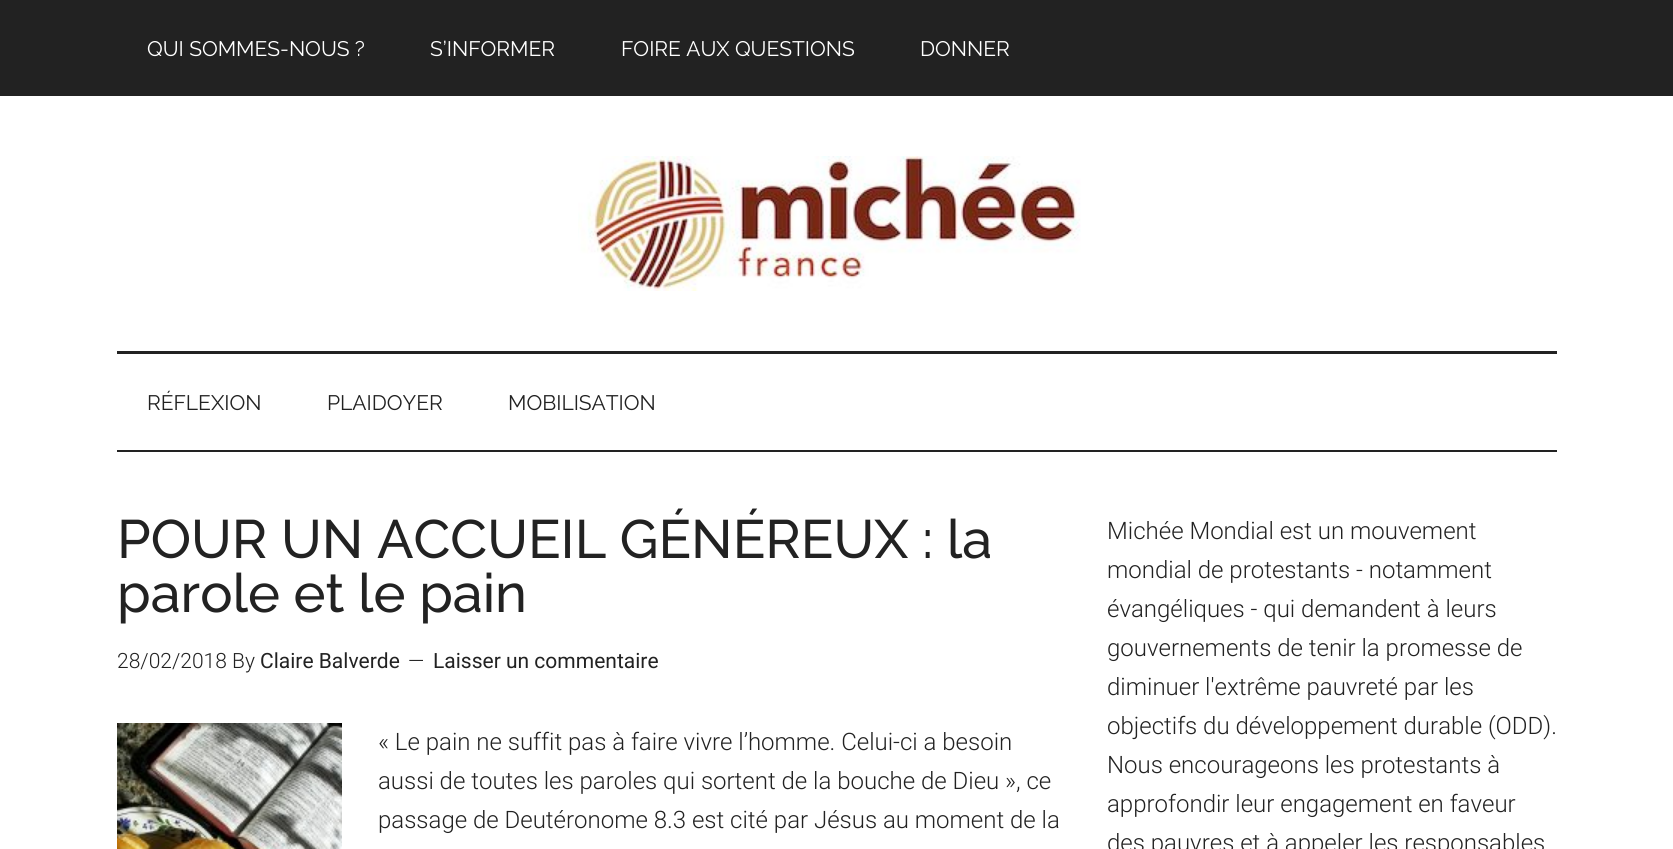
#include <cairo/cairo.h>
#include <math.h>
#include <stddef.h>

typedef struct { double x, y; const char *s; } line_t;
static cairo_t *cr;

static void rgb(unsigned color)
{
	cairo_set_source_rgb(cr, (color >> 16) / 255.0, (color >> 8 & 255) / 255.0, (color & 255) / 255.0);
}

static void image(const char *path, double x, double y, double w, double h)
{
	cairo_surface_t *image = cairo_image_surface_create_from_png(path);
	cairo_save(cr);
	cairo_set_source_surface(cr, image, x, y);
	cairo_rectangle(cr, x, y, w, h);
	cairo_fill(cr);
	cairo_restore(cr);
	cairo_surface_destroy(image);
}

int main(void) {
	cairo_surface_t *surface = cairo_image_surface_create(CAIRO_FORMAT_RGB24, 1673, 849);
	cr = cairo_create(surface);
	cairo_font_options_t *options = cairo_font_options_create();
	cairo_font_options_set_hint_metrics(options, CAIRO_HINT_METRICS_OFF);
	cairo_font_options_set_hint_style(options, CAIRO_HINT_STYLE_NONE);
	cairo_set_font_options(cr, options);
	cairo_set_miter_limit(cr, 4);
	rgb(0xffffff);
	cairo_paint(cr);
	rgb(0x222222);
	cairo_rectangle(cr, 0, 0, 1673, 96);
	cairo_fill(cr);
	cairo_rectangle(cr, 117, 351, 1440, 3);
	cairo_fill(cr);
	image("img/1.png", 578, 156, 503, 135);
	cairo_rectangle(cr, 117, 450, 1440, 2);
	cairo_fill(cr);
	image("img/2.png", 117, 723, 225, 126);
	cairo_select_font_face(cr, "Raleway", CAIRO_FONT_SLANT_NORMAL, CAIRO_FONT_WEIGHT_NORMAL);
	cairo_set_font_size(cr, 21);
	rgb(0xffffff);
	{
		static const line_t items[] = {
			{147, 56, "QUI SOMMES-NOUS ?"},
			{430, 56, "S’INFORMER"},
			{621, 56, "FOIRE AUX QUESTIONS"},
			{920, 56, "DONNER"},
		};
		for (size_t i = 0; i < sizeof items / sizeof *items; i++) {
			cairo_move_to(cr, items[i].x, items[i].y);
			cairo_show_text(cr, items[i].s);
		}
	}
	rgb(0x222222);
	{
		static const line_t items[] = {
			{147, 410, "RÉFLEXION"},
			{327, 410, "PLAIDOYER"},
			{508, 410, "MOBILISATION"},
		};
		for (size_t i = 0; i < sizeof items / sizeof *items; i++) {
			cairo_move_to(cr, items[i].x, items[i].y);
			cairo_show_text(cr, items[i].s);
		}
	}
	cairo_select_font_face(cr, "Raleway Medium", CAIRO_FONT_SLANT_NORMAL, CAIRO_FONT_WEIGHT_NORMAL);
	cairo_set_font_size(cr, 54);
	cairo_move_to(cr, 117, 558);
	cairo_show_text(cr, "POUR UN ACCUEIL GÉNÉREUX : la");
	cairo_move_to(cr, 117, 612);
	cairo_show_text(cr, "parole et le pain");
	cairo_select_font_face(cr, "Roboto Light", CAIRO_FONT_SLANT_NORMAL, CAIRO_FONT_WEIGHT_NORMAL);
	cairo_set_font_size(cr, 21);
	cairo_move_to(cr, 117, 668);
	cairo_show_text(cr, "28/02/2018 By");
	cairo_select_font_face(cr, "Roboto", CAIRO_FONT_SLANT_NORMAL, CAIRO_FONT_WEIGHT_NORMAL);
	cairo_move_to(cr, 260, 668);
	cairo_show_text(cr, "Claire Balverde");
	cairo_select_font_face(cr, "Roboto Light", CAIRO_FONT_SLANT_NORMAL, CAIRO_FONT_WEIGHT_NORMAL);
	cairo_move_to(cr, 408, 668);
	cairo_show_text(cr, "—");
	cairo_select_font_face(cr, "Roboto", CAIRO_FONT_SLANT_NORMAL, CAIRO_FONT_WEIGHT_NORMAL);
	cairo_move_to(cr, 433, 668);
	cairo_show_text(cr, "Laisser un commentaire");
	cairo_select_font_face(cr, "Roboto Light", CAIRO_FONT_SLANT_NORMAL, CAIRO_FONT_WEIGHT_NORMAL);
	cairo_set_font_size(cr, 24);
	{
		static const line_t items[] = {
			{378, 750, "« Le pain ne suffit pas à faire vivre l’homme. Celui-ci a besoin"},
			{378, 789, "aussi de toutes les paroles qui sortent de la bouche de Dieu », ce"},
			{378, 828, "passage de Deutéronome 8.3 est cité par Jésus au moment de la"},
			{1107, 539, "Michée Mondial est un mouvement"},
			{1107, 578, "mondial de protestants - notamment"},
			{1107, 617, "évangéliques - qui demandent à leurs"},
			{1107, 656, "gouvernements de tenir la promesse de"},
			{1107, 695, "diminuer l'extrême pauvreté par les"},
			{1107, 734, "objectifs du développement durable (ODD)."},
			{1107, 773, "Nous encourageons les protestants à"},
			{1107, 812, "approfondir leur engagement en faveur"},
			{1107, 851, "des pauvres et à appeler les responsables"},
		};
		for (size_t i = 0; i < sizeof items / sizeof *items; i++) {
			cairo_move_to(cr, items[i].x, items[i].y);
			cairo_show_text(cr, items[i].s);
		}
	}
	cairo_surface_write_to_png(surface, "page.png");
	cairo_font_options_destroy(options);
	cairo_destroy(cr);
	cairo_surface_destroy(surface);
	return 0;
}
